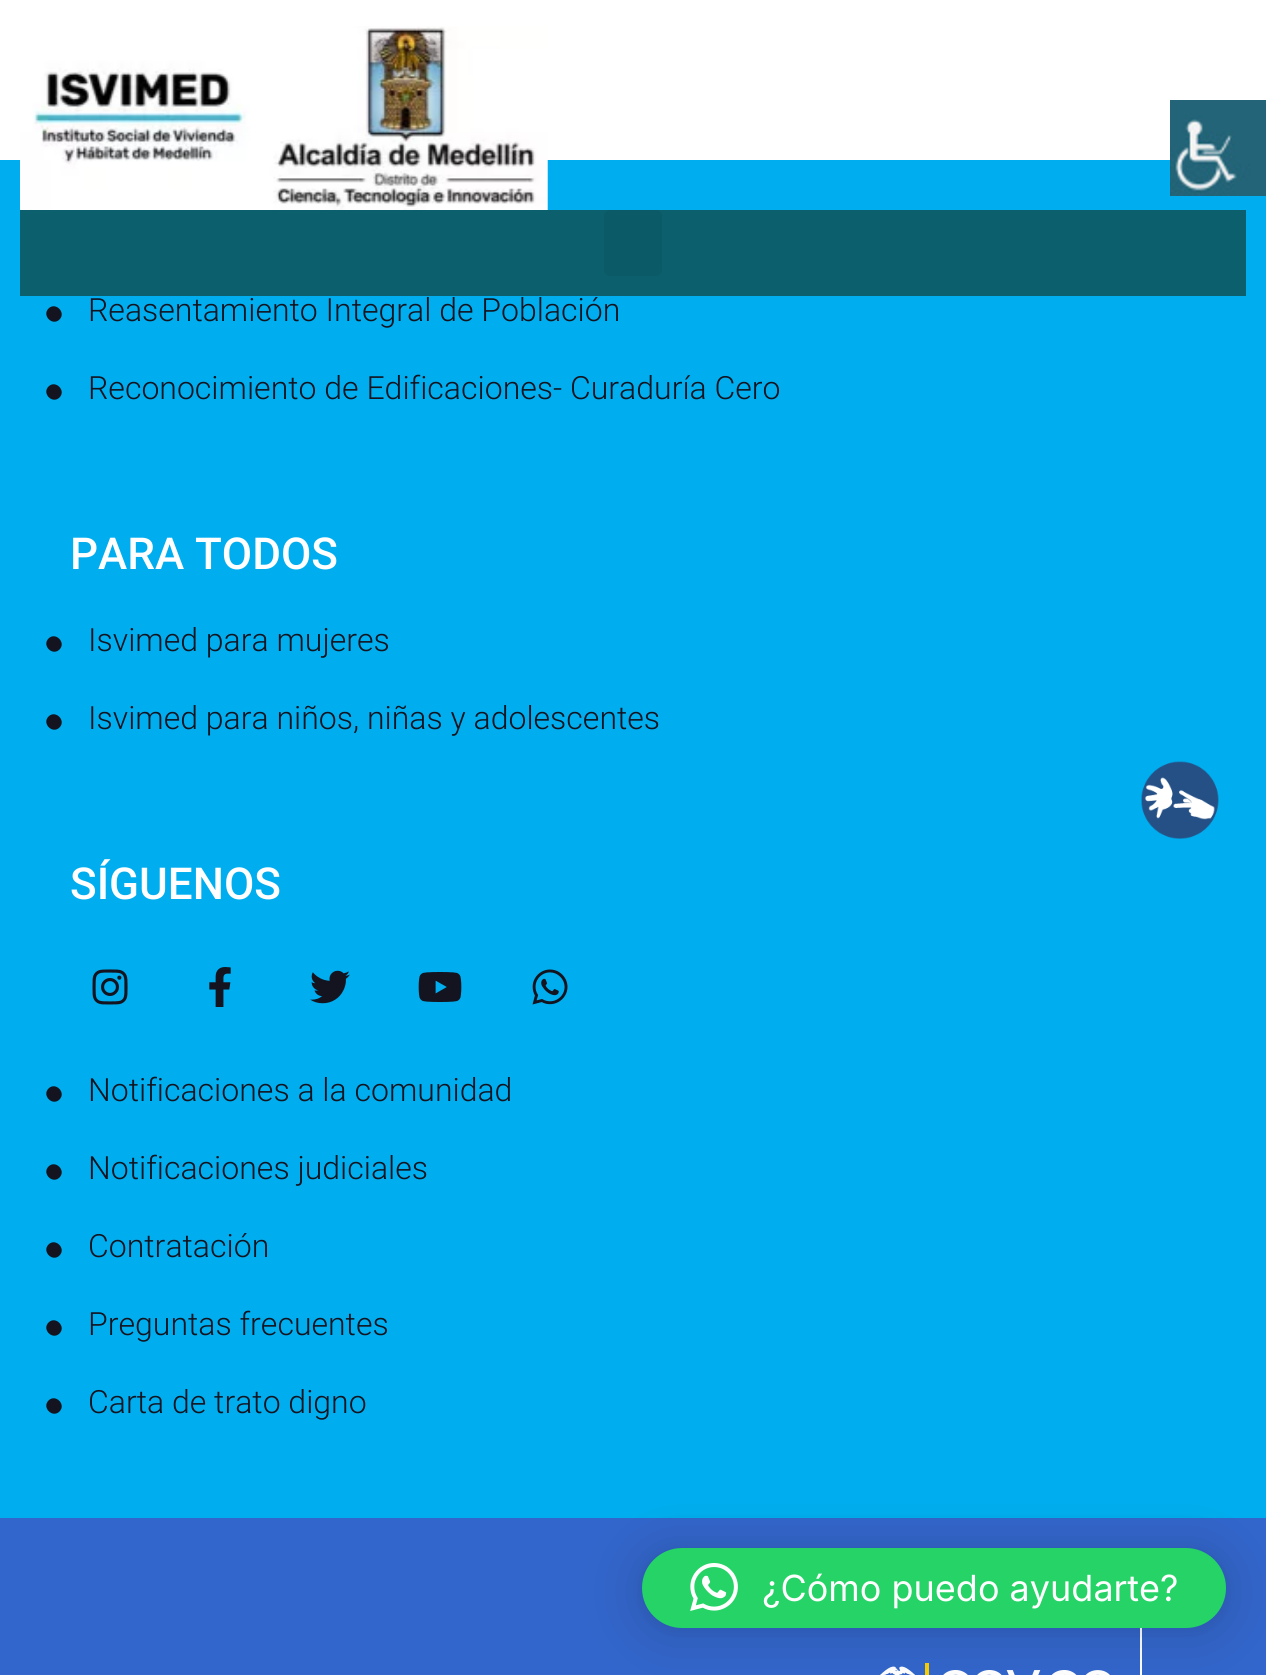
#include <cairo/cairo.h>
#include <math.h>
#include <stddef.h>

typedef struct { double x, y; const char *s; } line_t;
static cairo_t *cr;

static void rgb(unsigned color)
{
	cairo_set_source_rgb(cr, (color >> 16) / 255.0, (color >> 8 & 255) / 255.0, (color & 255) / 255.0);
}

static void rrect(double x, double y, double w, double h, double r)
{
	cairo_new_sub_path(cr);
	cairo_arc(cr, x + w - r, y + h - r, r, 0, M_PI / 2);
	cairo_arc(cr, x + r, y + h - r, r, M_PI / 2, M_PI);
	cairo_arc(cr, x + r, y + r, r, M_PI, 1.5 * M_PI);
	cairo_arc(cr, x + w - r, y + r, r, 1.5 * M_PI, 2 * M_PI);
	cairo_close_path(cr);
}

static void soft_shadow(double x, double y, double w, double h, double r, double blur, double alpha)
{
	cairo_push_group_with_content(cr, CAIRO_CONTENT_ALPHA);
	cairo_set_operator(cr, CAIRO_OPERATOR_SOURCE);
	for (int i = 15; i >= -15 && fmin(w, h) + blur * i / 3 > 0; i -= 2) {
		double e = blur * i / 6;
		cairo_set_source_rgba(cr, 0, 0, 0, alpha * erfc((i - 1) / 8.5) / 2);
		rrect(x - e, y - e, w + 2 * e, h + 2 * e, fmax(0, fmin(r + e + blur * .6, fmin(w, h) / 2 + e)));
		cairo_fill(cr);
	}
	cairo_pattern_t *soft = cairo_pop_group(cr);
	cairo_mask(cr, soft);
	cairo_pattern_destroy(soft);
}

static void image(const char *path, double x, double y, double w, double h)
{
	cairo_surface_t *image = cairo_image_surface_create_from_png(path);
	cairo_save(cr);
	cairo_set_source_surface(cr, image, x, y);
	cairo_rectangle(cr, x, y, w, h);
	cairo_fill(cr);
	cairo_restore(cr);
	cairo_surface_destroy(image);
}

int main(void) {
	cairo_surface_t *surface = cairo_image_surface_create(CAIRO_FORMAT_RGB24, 1266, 1675);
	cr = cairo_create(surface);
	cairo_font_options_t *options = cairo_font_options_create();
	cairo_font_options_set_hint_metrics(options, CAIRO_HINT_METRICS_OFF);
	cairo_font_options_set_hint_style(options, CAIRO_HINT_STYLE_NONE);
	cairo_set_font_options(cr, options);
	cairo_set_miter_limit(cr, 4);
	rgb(0x00aeef);
	cairo_paint(cr);
	rgb(0xffffff);
	cairo_rectangle(cr, 0, 0, 1266, 160);
	cairo_fill(cr);
	image("img/1.png", 20, 26, 528, 184);
	rgb(0x0c5f6d);
	cairo_rectangle(cr, 20, 210, 1226, 86);
	cairo_fill(cr);
	rgb(0x0b5a68);
	rrect(604, 210, 58, 66, 6);
	cairo_fill(cr);
	image("img/2.png", 1170, 100, 96, 96);
	rgb(0x131420);
	cairo_new_path(cr);
	cairo_move_to(cr, 48.5, 308.5);
	cairo_curve_to(cr, 55.5, 301.5, 66.5, 312.5, 59.5, 319.5);
	cairo_curve_to(cr, 52.5, 326.5, 41.5, 315.5, 48.5, 308.5);
	cairo_close_path(cr);
	cairo_fill(cr);
	cairo_new_path(cr);
	cairo_move_to(cr, 48.5, 386.5);
	cairo_curve_to(cr, 55.5, 379.5, 66.5, 390.5, 59.5, 397.5);
	cairo_curve_to(cr, 52.5, 404.5, 41.5, 393.5, 48.5, 386.5);
	cairo_close_path(cr);
	cairo_fill(cr);
	cairo_new_path(cr);
	cairo_move_to(cr, 48.5, 638.5);
	cairo_curve_to(cr, 55.5, 631.5, 66.5, 642.5, 59.5, 649.5);
	cairo_curve_to(cr, 52.5, 656.5, 41.5, 645.5, 48.5, 638.5);
	cairo_close_path(cr);
	cairo_fill(cr);
	cairo_new_path(cr);
	cairo_move_to(cr, 48.5, 716.5);
	cairo_curve_to(cr, 55.5, 709.5, 66.5, 720.5, 59.5, 727.5);
	cairo_curve_to(cr, 52.5, 734.5, 41.5, 723.5, 48.5, 716.5);
	cairo_close_path(cr);
	cairo_fill(cr);
	image("img/3.png", 92, 969, 36, 36);
	image("img/4.png", 209, 967, 22, 40);
	image("img/5.png", 310, 970, 40, 34);
	image("img/6.png", 418, 972, 44, 30);
	image("img/7.png", 532, 969, 36, 36);
	cairo_new_path(cr);
	cairo_move_to(cr, 48.5, 1088.5);
	cairo_curve_to(cr, 55.5, 1081.5, 66.5, 1092.5, 59.5, 1099.5);
	cairo_curve_to(cr, 52.5, 1106.5, 41.5, 1095.5, 48.5, 1088.5);
	cairo_close_path(cr);
	cairo_fill(cr);
	cairo_new_path(cr);
	cairo_move_to(cr, 48.5, 1166.5);
	cairo_curve_to(cr, 55.5, 1159.5, 66.5, 1170.5, 59.5, 1177.5);
	cairo_curve_to(cr, 52.5, 1184.5, 41.5, 1173.5, 48.5, 1166.5);
	cairo_close_path(cr);
	cairo_fill(cr);
	cairo_new_path(cr);
	cairo_move_to(cr, 48.5, 1244.5);
	cairo_curve_to(cr, 55.5, 1237.5, 66.5, 1248.5, 59.5, 1255.5);
	cairo_curve_to(cr, 52.5, 1262.5, 41.5, 1251.5, 48.5, 1244.5);
	cairo_close_path(cr);
	cairo_fill(cr);
	cairo_new_path(cr);
	cairo_move_to(cr, 48.5, 1322.5);
	cairo_curve_to(cr, 55.5, 1315.5, 66.5, 1326.5, 59.5, 1333.5);
	cairo_curve_to(cr, 52.5, 1340.5, 41.5, 1329.5, 48.5, 1322.5);
	cairo_close_path(cr);
	cairo_fill(cr);
	cairo_new_path(cr);
	cairo_move_to(cr, 48.5, 1400.5);
	cairo_curve_to(cr, 55.5, 1393.5, 66.5, 1404.5, 59.5, 1411.5);
	cairo_curve_to(cr, 52.5, 1418.5, 41.5, 1407.5, 48.5, 1400.5);
	cairo_close_path(cr);
	cairo_fill(cr);
	rgb(0x3366cc);
	cairo_rectangle(cr, 0, 1518, 1266, 157);
	cairo_fill(cr);
	image("img/8.png", 880, 1663, 230, 12);
	rgb(0xffffff);
	cairo_rectangle(cr, 1140, 1628, 2, 47);
	cairo_fill(cr);
	image("img/9.png", 1141, 761, 78, 78);
	rgb(0x000000);
	soft_shadow(642, 1552, 584, 80, 40, 32, 0.16);
	soft_shadow(642, 1550, 584, 80, 40, 6, 0.06);
	rgb(0x25d366);
	rrect(642, 1548, 584, 80, 40);
	cairo_fill(cr);
	image("img/10.png", 690, 1563, 48, 48);
	cairo_select_font_face(cr, "Roboto Light", CAIRO_FONT_SLANT_NORMAL, CAIRO_FONT_WEIGHT_NORMAL);
	cairo_set_font_size(cr, 32);
	rgb(0x131420);
	cairo_move_to(cr, 88, 321);
	cairo_show_text(cr, "Reasentamiento Integral de Población");
	cairo_move_to(cr, 88, 399);
	cairo_show_text(cr, "Reconocimiento de Edificaciones- Curaduría Cero");
	cairo_select_font_face(cr, "Roboto Medium", CAIRO_FONT_SLANT_NORMAL, CAIRO_FONT_WEIGHT_NORMAL);
	cairo_set_font_size(cr, 44);
	rgb(0xffffff);
	cairo_move_to(cr, 70, 569);
	cairo_show_text(cr, "PARA TODOS");
	cairo_select_font_face(cr, "Roboto Light", CAIRO_FONT_SLANT_NORMAL, CAIRO_FONT_WEIGHT_NORMAL);
	cairo_set_font_size(cr, 32);
	rgb(0x131420);
	cairo_move_to(cr, 88, 651);
	cairo_show_text(cr, "Isvimed para mujeres");
	cairo_move_to(cr, 88, 729);
	cairo_show_text(cr, "Isvimed para niños, niñas y adolescentes");
	cairo_select_font_face(cr, "Roboto Medium", CAIRO_FONT_SLANT_NORMAL, CAIRO_FONT_WEIGHT_NORMAL);
	cairo_set_font_size(cr, 44);
	rgb(0xffffff);
	cairo_move_to(cr, 70, 899);
	cairo_show_text(cr, "SÍGUENOS");
	cairo_select_font_face(cr, "Roboto Light", CAIRO_FONT_SLANT_NORMAL, CAIRO_FONT_WEIGHT_NORMAL);
	cairo_set_font_size(cr, 32);
	rgb(0x131420);
	{
		static const line_t items[] = {
			{88, 1101, "Notificaciones a la comunidad"},
			{88, 1179, "Notificaciones judiciales"},
			{88, 1257, "Contratación"},
			{88, 1335, "Preguntas frecuentes"},
			{88, 1413, "Carta de trato digno"},
		};
		for (size_t i = 0; i < sizeof items / sizeof *items; i++) {
			cairo_move_to(cr, items[i].x, items[i].y);
			cairo_show_text(cr, items[i].s);
		}
	}
	cairo_select_font_face(cr, "Inter", CAIRO_FONT_SLANT_NORMAL, CAIRO_FONT_WEIGHT_NORMAL);
	cairo_set_font_size(cr, 36);
	rgb(0xffffff);
	cairo_move_to(cr, 762, 1601);
	cairo_show_text(cr, "¿Cómo puedo ayudarte?");
	cairo_surface_write_to_png(surface, "page.png");
	cairo_font_options_destroy(options);
	cairo_destroy(cr);
	cairo_surface_destroy(surface);
	return 0;
}
